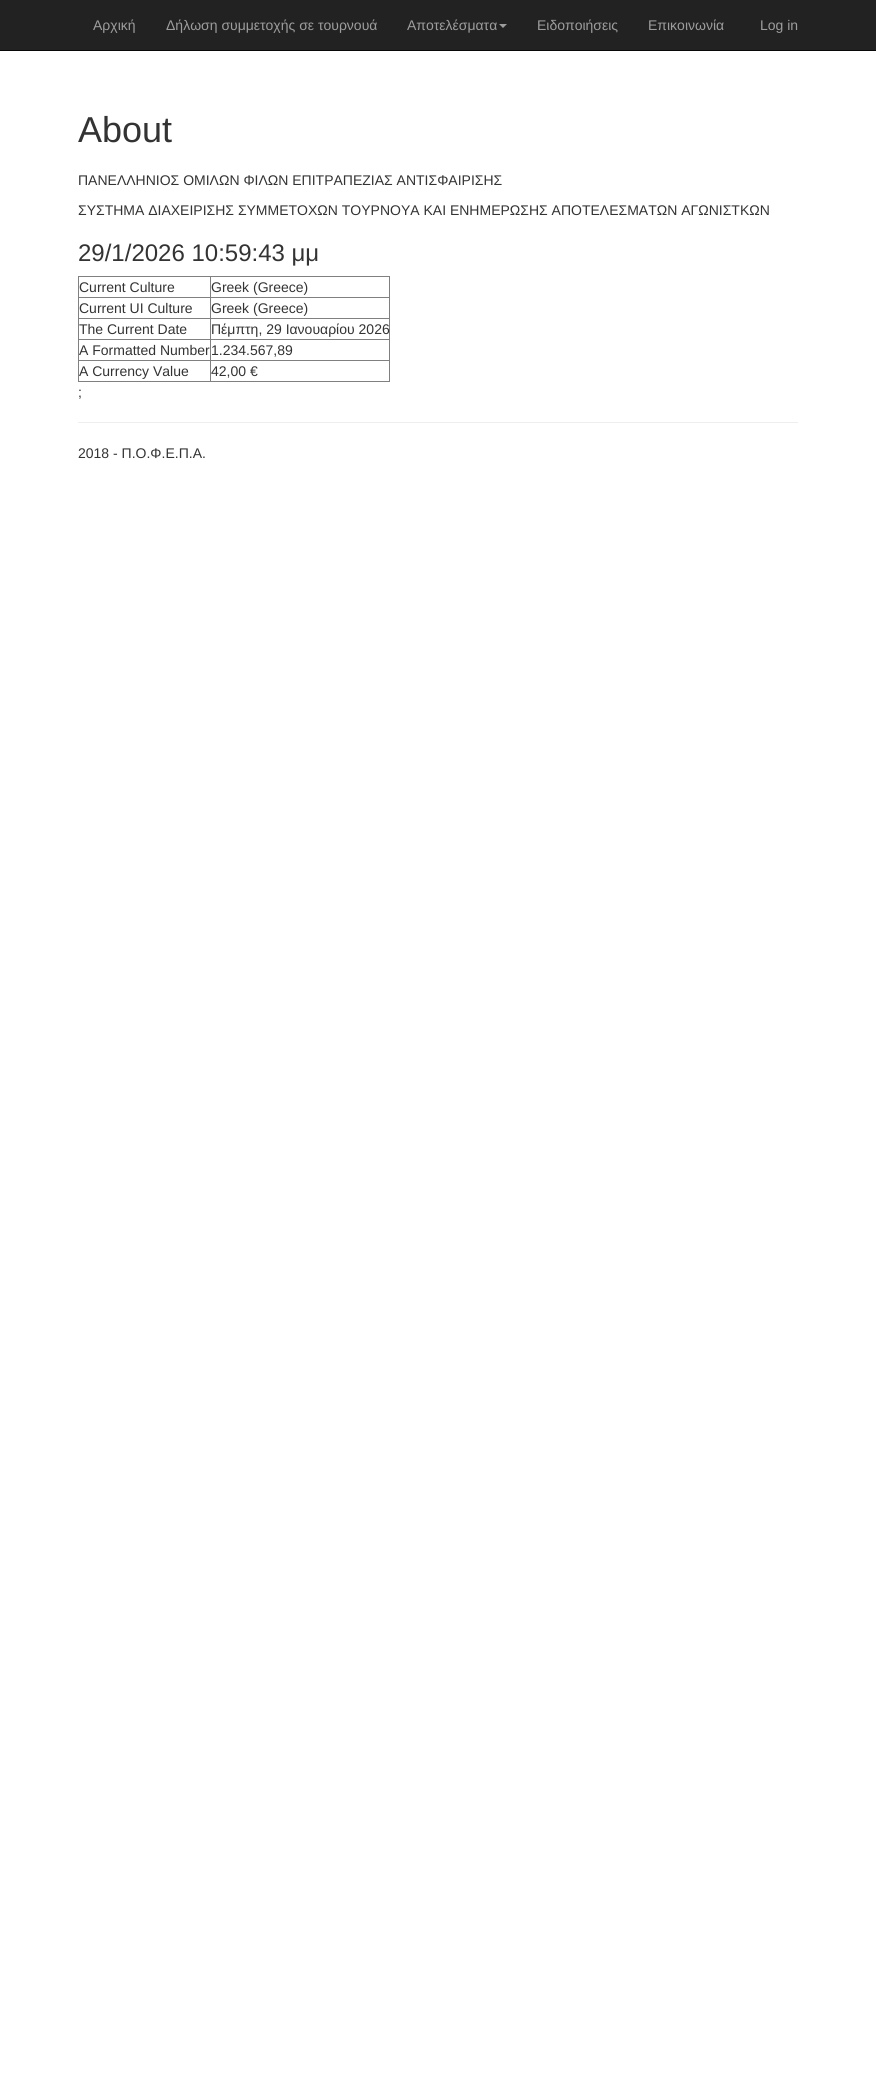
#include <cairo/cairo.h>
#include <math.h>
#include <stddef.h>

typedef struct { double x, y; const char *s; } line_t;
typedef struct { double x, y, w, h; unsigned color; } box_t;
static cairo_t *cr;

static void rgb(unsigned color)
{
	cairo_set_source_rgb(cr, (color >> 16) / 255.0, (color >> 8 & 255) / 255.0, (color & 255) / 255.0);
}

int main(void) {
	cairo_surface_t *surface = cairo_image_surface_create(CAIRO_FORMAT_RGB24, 876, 2096);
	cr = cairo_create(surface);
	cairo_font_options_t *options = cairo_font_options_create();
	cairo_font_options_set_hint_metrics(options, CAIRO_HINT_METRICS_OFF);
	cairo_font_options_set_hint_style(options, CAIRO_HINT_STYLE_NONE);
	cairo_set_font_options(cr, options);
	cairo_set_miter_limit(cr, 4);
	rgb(0xffffff);
	cairo_paint(cr);
	rgb(0x222222);
	cairo_rectangle(cr, 0, 0, 876, 50);
	cairo_fill(cr);
	rgb(0x080808);
	cairo_rectangle(cr, 0, 50, 876, 1);
	cairo_fill(cr);
	rgb(0x9d9d9d);
	cairo_new_path(cr);
	cairo_move_to(cr, 499, 24);
	cairo_line_to(cr, 507, 24);
	cairo_line_to(cr, 503, 28);
	cairo_close_path(cr);
	cairo_fill(cr);
	{
		static const box_t items[] = {
			{78, 276, 312, 1, 0x808080},
			{389, 276, 1, 106, 0x808080},
			{78, 381, 312, 1, 0x808080},
			{78, 276, 1, 106, 0x808080},
			{210, 297, 180, 1, 0x808080},
			{210, 318, 180, 1, 0x808080},
			{210, 339, 180, 1, 0x808080},
			{210, 360, 180, 1, 0x808080},
			{210, 360, 1, 22, 0x808080},
			{78, 360, 133, 1, 0x808080},
			{210, 339, 1, 22, 0x808080},
			{78, 339, 133, 1, 0x808080},
			{210, 318, 1, 22, 0x808080},
			{78, 318, 133, 1, 0x808080},
			{210, 297, 1, 22, 0x808080},
			{78, 297, 133, 1, 0x808080},
			{210, 276, 1, 22, 0x808080},
			{78, 422, 720, 1, 0xeeeeee},
		};
		for (size_t i = 0; i < sizeof items / sizeof *items; i++) {
			rgb(items[i].color);
			cairo_rectangle(cr, items[i].x, items[i].y, items[i].w, items[i].h);
			cairo_fill(cr);
		}
	}
	cairo_select_font_face(cr, "Liberation Sans", CAIRO_FONT_SLANT_NORMAL, CAIRO_FONT_WEIGHT_NORMAL);
	cairo_set_font_size(cr, 14);
	rgb(0x9d9d9d);
	{
		static const line_t items[] = {
			{93, 30, "Αρχική"},
			{166, 30, "Δήλωση συμμετοχής σε τουρνουά"},
			{407, 30, "Αποτελέσματα"},
			{537, 30, "Ειδοποιήσεις"},
			{648, 30, "Επικοινωνία"},
			{760, 30, "Log in"},
		};
		for (size_t i = 0; i < sizeof items / sizeof *items; i++) {
			cairo_move_to(cr, items[i].x, items[i].y);
			cairo_show_text(cr, items[i].s);
		}
	}
	cairo_set_font_size(cr, 36);
	rgb(0x333333);
	cairo_move_to(cr, 78, 142);
	cairo_show_text(cr, "About");
	cairo_set_font_size(cr, 14);
	cairo_move_to(cr, 78, 185);
	cairo_show_text(cr, "ΠΑΝΕΛΛΗΝΙΟΣ ΟΜΙΛΩΝ ΦΙΛΩΝ ΕΠΙΤΡΑΠΕΖΙΑΣ ΑΝΤΙΣΦΑΙΡΙΣΗΣ");
	cairo_move_to(cr, 78, 215);
	cairo_show_text(cr, "ΣΥΣΤΗΜΑ ΔΙΑΧΕΙΡΙΣΗΣ ΣΥΜΜΕΤΟΧΩΝ ΤΟΥΡΝΟΥΑ ΚΑΙ ΕΝΗΜΕΡΩΣΗΣ ΑΠΟΤΕΛΕΣΜΑΤΩΝ ΑΓΩΝΙΣΤΚΩΝ");
	cairo_set_font_size(cr, 24);
	cairo_move_to(cr, 78, 261);
	cairo_show_text(cr, "29/1/2026 10:59:43 μμ");
	cairo_set_font_size(cr, 14);
	{
		static const line_t items[] = {
			{79, 292, "Current Culture"},
			{211, 292, "Greek (Greece)"},
			{79, 313, "Current UI Culture"},
			{211, 313, "Greek (Greece)"},
			{79, 334, "The Current Date"},
			{211, 334, "Πέμπτη, 29 Ιανουαρίου 2026"},
			{79, 355, "A Formatted Number"},
			{211, 355, "1.234.567,89"},
			{79, 376, "A Currency Value"},
			{211, 376, "42,00 €"},
			{78, 397, ";"},
			{78, 458, "2018 - Π.Ο.Φ.Ε.Π.Α."},
		};
		for (size_t i = 0; i < sizeof items / sizeof *items; i++) {
			cairo_move_to(cr, items[i].x, items[i].y);
			cairo_show_text(cr, items[i].s);
		}
	}
	cairo_surface_write_to_png(surface, "page.png");
	cairo_font_options_destroy(options);
	cairo_destroy(cr);
	cairo_surface_destroy(surface);
	return 0;
}
